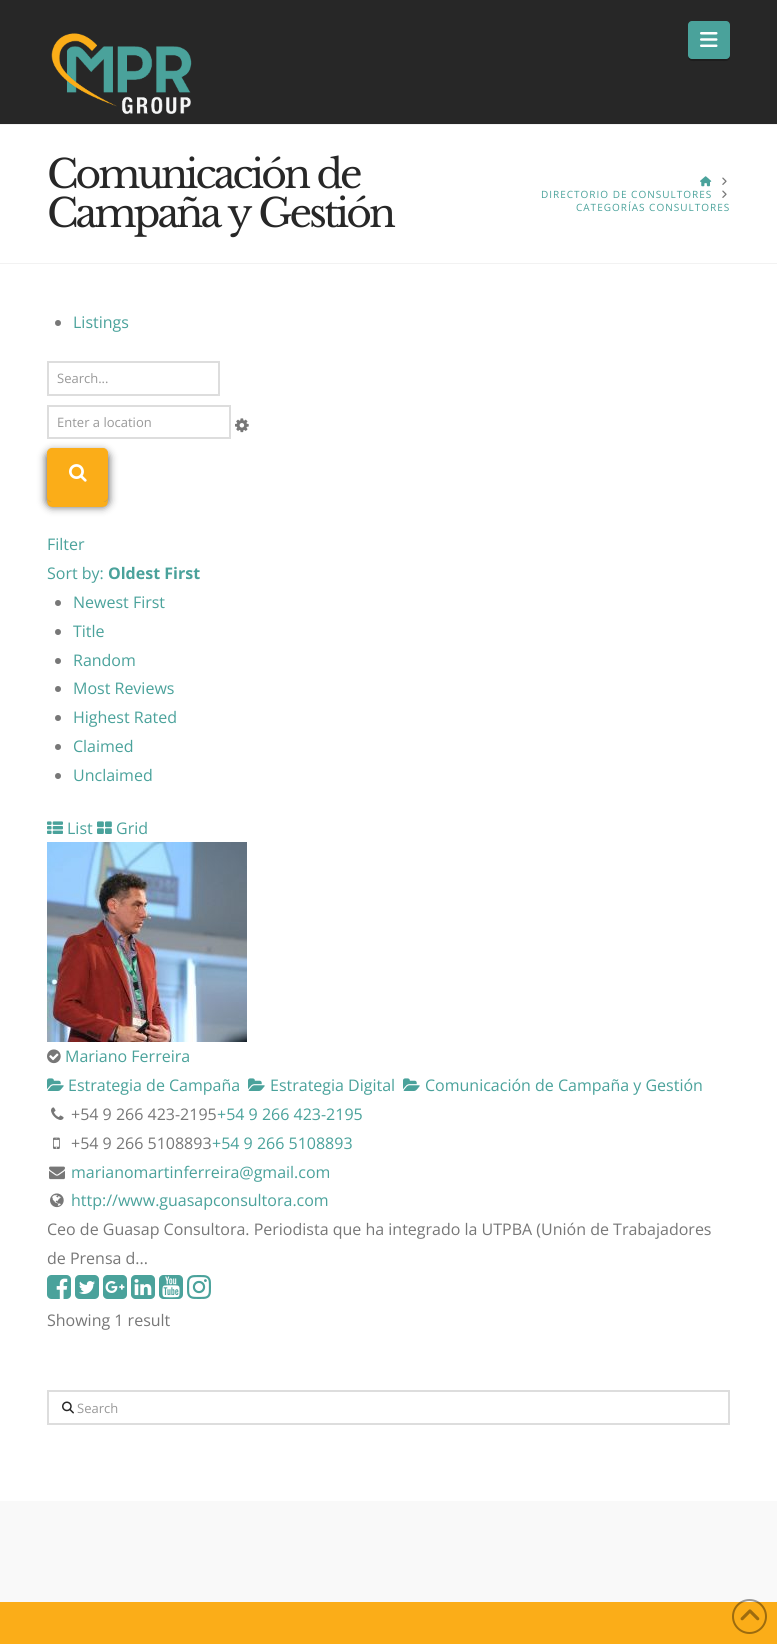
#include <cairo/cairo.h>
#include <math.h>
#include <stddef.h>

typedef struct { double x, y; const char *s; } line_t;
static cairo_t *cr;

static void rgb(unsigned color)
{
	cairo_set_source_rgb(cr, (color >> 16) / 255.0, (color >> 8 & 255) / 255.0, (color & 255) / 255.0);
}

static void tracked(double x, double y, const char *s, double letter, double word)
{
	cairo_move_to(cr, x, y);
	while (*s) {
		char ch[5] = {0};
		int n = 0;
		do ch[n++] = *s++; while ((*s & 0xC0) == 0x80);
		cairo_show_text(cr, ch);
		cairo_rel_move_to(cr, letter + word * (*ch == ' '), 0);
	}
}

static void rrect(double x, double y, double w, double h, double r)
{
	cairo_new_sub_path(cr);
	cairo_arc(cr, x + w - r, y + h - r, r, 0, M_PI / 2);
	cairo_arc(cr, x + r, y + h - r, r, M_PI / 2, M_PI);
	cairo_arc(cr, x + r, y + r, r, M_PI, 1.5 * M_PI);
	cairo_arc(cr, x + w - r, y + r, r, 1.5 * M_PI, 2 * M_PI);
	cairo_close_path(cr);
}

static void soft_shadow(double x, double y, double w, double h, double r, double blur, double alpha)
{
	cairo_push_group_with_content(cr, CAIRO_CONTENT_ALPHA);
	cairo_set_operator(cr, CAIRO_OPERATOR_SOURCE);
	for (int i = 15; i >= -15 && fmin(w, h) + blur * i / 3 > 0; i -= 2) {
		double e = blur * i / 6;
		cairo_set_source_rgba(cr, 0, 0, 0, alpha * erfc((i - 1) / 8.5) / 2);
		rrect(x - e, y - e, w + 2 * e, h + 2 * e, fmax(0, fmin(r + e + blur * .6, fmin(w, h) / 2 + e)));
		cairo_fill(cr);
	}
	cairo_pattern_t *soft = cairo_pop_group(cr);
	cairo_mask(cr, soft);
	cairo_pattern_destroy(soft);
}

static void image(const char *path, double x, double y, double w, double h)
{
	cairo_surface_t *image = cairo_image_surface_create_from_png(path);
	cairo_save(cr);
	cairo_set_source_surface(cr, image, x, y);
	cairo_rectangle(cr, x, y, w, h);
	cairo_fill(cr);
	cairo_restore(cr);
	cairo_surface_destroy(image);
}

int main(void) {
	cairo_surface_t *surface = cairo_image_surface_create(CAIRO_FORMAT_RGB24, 777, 1644);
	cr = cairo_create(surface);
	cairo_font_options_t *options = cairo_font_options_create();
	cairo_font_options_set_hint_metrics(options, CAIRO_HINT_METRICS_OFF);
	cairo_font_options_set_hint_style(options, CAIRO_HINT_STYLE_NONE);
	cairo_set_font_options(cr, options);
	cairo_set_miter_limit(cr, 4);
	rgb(0xffffff);
	cairo_paint(cr);
	rgb(0x272727);
	cairo_rectangle(cr, 0, 0, 777, 124);
	cairo_fill(cr);
	image("img/1.png", 51, 33, 141, 81);
	rgb(0x1d1d1d);
	cairo_new_path(cr);
	cairo_move_to(cr, 688, 55);
	cairo_curve_to(cr, 688, 62, 691, 61, 698, 61);
	cairo_line_to(cr, 720, 61);
	cairo_curve_to(cr, 727, 61, 730, 62, 730, 55);
	cairo_curve_to(cr, 730, 57, 728, 59, 726, 59);
	cairo_line_to(cr, 692, 59);
	cairo_curve_to(cr, 690, 59, 688, 57, 688, 55);
	cairo_close_path(cr);
	cairo_fill(cr);
	rgb(0x4aa29b);
	rrect(688, 21, 42, 38, 4);
	cairo_fill(cr);
	image("img/2.png", 700, 32, 18, 15);
	rgb(0xf2f2f2);
	cairo_rectangle(cr, 0, 124, 777, 1);
	cairo_fill(cr);
	cairo_rectangle(cr, 0, 263, 777, 1);
	cairo_fill(cr);
	image("img/3.png", 700, 176, 12, 11);
	image("img/4.png", 722, 177, 5, 8);
	image("img/4.png", 722, 190, 5, 8);
	rgb(0x777777);
	cairo_arc(cr, 58, 323, 3, 0, 2 * M_PI);
	cairo_fill(cr);
	cairo_rectangle(cr, 48, 362, 171, 33);
	rgb(0xdddddd);
	cairo_stroke(cr);
	cairo_rectangle(cr, 48, 406, 182, 32);
	cairo_stroke(cr);
	image("img/5.png", 235, 418, 14, 15);
	rgb(0x000000);
	soft_shadow(47, 452, 61, 54, 5, 4.5, 0.75);
	rgb(0xfbad18);
	cairo_new_path(cr);
	cairo_move_to(cr, 47, 497);
	cairo_curve_to(cr, 47, 508, 49, 507, 60, 507);
	cairo_line_to(cr, 94, 507);
	cairo_curve_to(cr, 106, 507, 108, 508, 108, 497);
	cairo_curve_to(cr, 108, 500, 106, 502, 103, 502);
	cairo_line_to(cr, 52, 502);
	cairo_curve_to(cr, 49, 502, 47, 500, 47, 497);
	cairo_close_path(cr);
	cairo_fill(cr);
	rrect(47.5, 448.5, 60, 53, 4.5);
	cairo_fill_preserve(cr);
	cairo_set_line_width(cr, 1);
	cairo_stroke(cr);
	image("img/6.png", 69, 464, 18, 18);
	rgb(0x777777);
	cairo_arc(cr, 58, 603, 3, 0, 2 * M_PI);
	cairo_fill(cr);
	cairo_arc(cr, 58, 632, 3, 0, 2 * M_PI);
	cairo_fill(cr);
	cairo_arc(cr, 58, 661, 3, 0, 2 * M_PI);
	cairo_fill(cr);
	cairo_arc(cr, 58, 689, 3, 0, 2 * M_PI);
	cairo_fill(cr);
	cairo_arc(cr, 58, 718, 3, 0, 2 * M_PI);
	cairo_fill(cr);
	cairo_arc(cr, 58, 747, 3, 0, 2 * M_PI);
	cairo_fill(cr);
	cairo_arc(cr, 58, 776, 3, 0, 2 * M_PI);
	cairo_fill(cr);
	image("img/7.png", 47, 821, 16, 13);
	image("img/8.png", 97, 821, 15, 13);
	image("img/9.png", 47, 842, 200, 200);
	image("img/10.png", 47, 1049, 14, 15);
	image("img/11.png", 47, 1078, 17, 13);
	image("img/11.png", 248, 1078, 17, 13);
	image("img/11.png", 403, 1078, 17, 13);
	image("img/12.png", 51, 1107, 13, 13);
	image("img/13.png", 53, 1137, 7, 12);
	image("img/14.png", 49, 1166, 16, 14);
	image("img/15.png", 50, 1193, 14, 15);
	image("img/16.png", 47, 1275, 24, 24);
	image("img/17.png", 75, 1275, 24, 24);
	image("img/18.png", 103, 1275, 24, 24);
	image("img/19.png", 131, 1275, 24, 24);
	image("img/20.png", 159, 1275, 24, 24);
	image("img/21.png", 187, 1275, 24, 24);
	cairo_rectangle(cr, 48, 1391, 681, 33);
	rgb(0xdddddd);
	cairo_set_line_width(cr, 2);
	cairo_stroke(cr);
	image("img/22.png", 62, 1401, 12, 13);
	rgb(0xf9f9f9);
	cairo_rectangle(cr, 0, 1501, 777, 101);
	cairo_fill(cr);
	rgb(0xfbad18);
	cairo_rectangle(cr, 0, 1602, 777, 42);
	cairo_fill(cr);
	cairo_arc(cr, 749.5, 1616.5, 16.5, 0, 2 * M_PI);
	cairo_set_source_rgba(cr, 0, 0, 0, 0.38);
	cairo_stroke(cr);
	image("img/23.png", 740, 1609, 20, 12);
	cairo_select_font_face(cr, "Libre Baskerville", CAIRO_FONT_SLANT_NORMAL, CAIRO_FONT_WEIGHT_NORMAL);
	cairo_set_font_size(cr, 39.25);
	rgb(0x272727);
	tracked(47, 188, "Comunicación de", -2.9, 0);
	tracked(47, 227, "Campaña y Gestión", -2.9, 0);
	cairo_select_font_face(cr, "Open Sans", CAIRO_FONT_SLANT_NORMAL, CAIRO_FONT_WEIGHT_NORMAL);
	cairo_set_font_size(cr, 10);
	rgb(0x4aa29b);
	tracked(541, 198, "DIRECTORIO DE CONSULTORES", 1, 0);
	tracked(576, 211, "CATEGORÍAS CONSULTORES", 1, 0);
	cairo_set_font_size(cr, 16);
	cairo_move_to(cr, 73, 328);
	cairo_show_text(cr, "Listings");
	cairo_set_font_size(cr, 13);
	rgb(0x999999);
	cairo_move_to(cr, 57, 383);
	cairo_show_text(cr, "Search...");
	cairo_move_to(cr, 57, 427);
	cairo_show_text(cr, "Enter a location");
	cairo_set_font_size(cr, 16);
	rgb(0x4aa29b);
	cairo_move_to(cr, 47, 550);
	cairo_show_text(cr, "Filter");
	cairo_move_to(cr, 47, 579);
	cairo_show_text(cr, "Sort by:");
	cairo_select_font_face(cr, "Open Sans", CAIRO_FONT_SLANT_NORMAL, CAIRO_FONT_WEIGHT_BOLD);
	cairo_move_to(cr, 108, 579);
	cairo_show_text(cr, "Oldest First");
	cairo_select_font_face(cr, "Open Sans", CAIRO_FONT_SLANT_NORMAL, CAIRO_FONT_WEIGHT_NORMAL);
	{
		static const line_t items[] = {
			{73, 608, "Newest First"},
			{73, 637, "Title"},
			{73, 666, "Random"},
			{73, 694, "Most Reviews"},
			{73, 723, "Highest Rated"},
			{73, 752, "Claimed"},
			{73, 781, "Unclaimed"},
			{67, 834, "List"},
			{116, 834, "Grid"},
			{65, 1062, "Mariano Ferreira"},
			{68, 1091, "Estrategia de Campaña"},
			{270, 1091, "Estrategia Digital"},
			{425, 1091, "Comunicación de Campaña y Gestión"},
		};
		for (size_t i = 0; i < sizeof items / sizeof *items; i++) {
			cairo_move_to(cr, items[i].x, items[i].y);
			cairo_show_text(cr, items[i].s);
		}
	}
	rgb(0x777777);
	cairo_move_to(cr, 71, 1120);
	cairo_show_text(cr, "+54 9 266 423-2195");
	rgb(0x4aa29b);
	cairo_move_to(cr, 217, 1120);
	cairo_show_text(cr, "+54 9 266 423-2195");
	rgb(0x777777);
	cairo_move_to(cr, 71, 1149);
	cairo_show_text(cr, "+54 9 266 5108893");
	rgb(0x4aa29b);
	{
		static const line_t items[] = {
			{212, 1149, "+54 9 266 5108893"},
			{71, 1178, "marianomartinferreira@gmail.com"},
			{71, 1206, "http://www.guasapconsultora.com"},
		};
		for (size_t i = 0; i < sizeof items / sizeof *items; i++) {
			cairo_move_to(cr, items[i].x, items[i].y);
			cairo_show_text(cr, items[i].s);
		}
	}
	rgb(0x777777);
	{
		static const line_t items[] = {
			{47, 1235, "Ceo de Guasap Consultora. Periodista que ha integrado la UTPBA (Unión de Trabajadores"},
			{47, 1264, "de Prensa d..."},
			{47, 1326, "Showing 1 result"},
		};
		for (size_t i = 0; i < sizeof items / sizeof *items; i++) {
			cairo_move_to(cr, items[i].x, items[i].y);
			cairo_show_text(cr, items[i].s);
		}
	}
	cairo_set_font_size(cr, 13);
	rgb(0x999999);
	cairo_move_to(cr, 77, 1413);
	cairo_show_text(cr, "Search");
	cairo_surface_write_to_png(surface, "page.png");
	cairo_font_options_destroy(options);
	cairo_destroy(cr);
	cairo_surface_destroy(surface);
	return 0;
}
